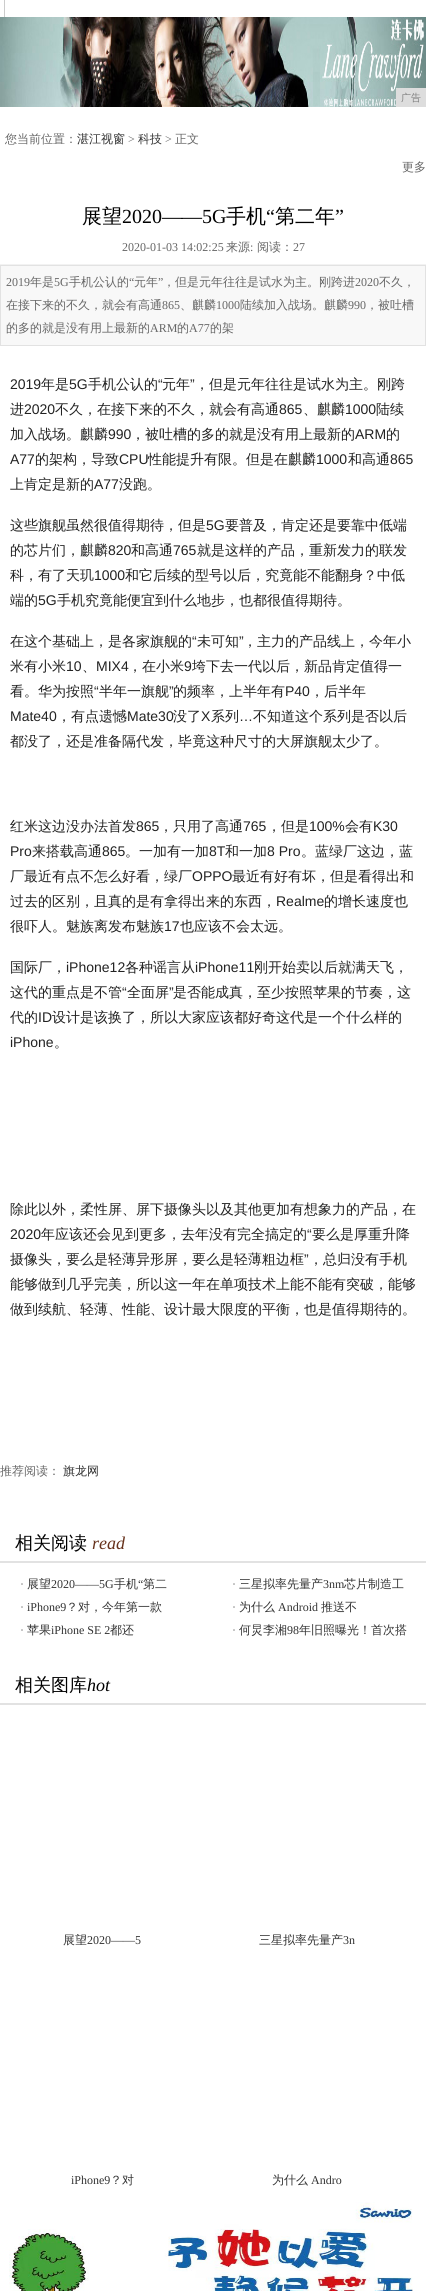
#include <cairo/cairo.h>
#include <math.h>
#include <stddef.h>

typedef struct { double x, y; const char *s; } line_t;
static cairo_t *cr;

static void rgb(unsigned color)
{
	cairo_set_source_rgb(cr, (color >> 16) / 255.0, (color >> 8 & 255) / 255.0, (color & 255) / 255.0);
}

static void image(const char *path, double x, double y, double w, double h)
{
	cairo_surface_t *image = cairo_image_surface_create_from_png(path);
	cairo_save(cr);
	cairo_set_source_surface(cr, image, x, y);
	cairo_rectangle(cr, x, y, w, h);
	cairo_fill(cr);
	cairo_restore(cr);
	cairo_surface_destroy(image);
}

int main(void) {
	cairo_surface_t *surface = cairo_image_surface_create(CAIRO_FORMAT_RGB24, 426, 2291);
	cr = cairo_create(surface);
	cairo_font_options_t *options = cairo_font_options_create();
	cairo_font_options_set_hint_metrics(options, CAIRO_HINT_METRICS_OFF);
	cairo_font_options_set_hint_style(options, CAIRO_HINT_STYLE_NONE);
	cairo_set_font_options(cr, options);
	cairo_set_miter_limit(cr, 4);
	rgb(0xffffff);
	cairo_paint(cr);
	rgb(0xcccccc);
	cairo_rectangle(cr, 4, 0, 1, 17);
	cairo_fill(cr);
	image("img/1.png", 0, 17, 426, 90);
	rgb(0xdddddd);
	cairo_rectangle(cr, 396, 88, 30, 19);
	cairo_fill(cr);
	rgb(0xf2f2f2);
	cairo_rectangle(cr, 0, 264, 426, 1);
	cairo_fill(cr);
	rgb(0xf8f8f8);
	cairo_rectangle(cr, 0.5, 265.5, 425, 80);
	cairo_fill_preserve(cr);
	rgb(0xe2e2e2);
	cairo_set_line_width(cr, 1);
	cairo_stroke(cr);
	cairo_rectangle(cr, 0, 1561, 426, 2);
	cairo_fill(cr);
	cairo_rectangle(cr, 0, 1703, 426, 2);
	cairo_fill(cr);
	image("img/2.png", 9, 2202, 404, 89);
	cairo_select_font_face(cr, "WenQuanYi Zen Hei Medium", CAIRO_FONT_SLANT_NORMAL, CAIRO_FONT_WEIGHT_NORMAL);
	cairo_set_font_size(cr, 10);
	rgb(0x808080);
	cairo_move_to(cr, 401, 101);
	cairo_show_text(cr, "广告");
	cairo_set_font_size(cr, 12);
	rgb(0x666666);
	cairo_move_to(cr, 5, 143);
	cairo_show_text(cr, "您当前位置：");
	rgb(0x333333);
	cairo_move_to(cr, 77, 143);
	cairo_show_text(cr, "湛江视窗");
	cairo_select_font_face(cr, "Liberation Serif", CAIRO_FONT_SLANT_NORMAL, CAIRO_FONT_WEIGHT_NORMAL);
	rgb(0x666666);
	cairo_move_to(cr, 128, 143);
	cairo_show_text(cr, ">");
	cairo_select_font_face(cr, "WenQuanYi Zen Hei Medium", CAIRO_FONT_SLANT_NORMAL, CAIRO_FONT_WEIGHT_NORMAL);
	rgb(0x333333);
	cairo_move_to(cr, 138, 143);
	cairo_show_text(cr, "科技");
	cairo_select_font_face(cr, "Liberation Serif", CAIRO_FONT_SLANT_NORMAL, CAIRO_FONT_WEIGHT_NORMAL);
	rgb(0x666666);
	cairo_move_to(cr, 165, 143);
	cairo_show_text(cr, ">");
	cairo_select_font_face(cr, "WenQuanYi Zen Hei Medium", CAIRO_FONT_SLANT_NORMAL, CAIRO_FONT_WEIGHT_NORMAL);
	cairo_move_to(cr, 175, 143);
	cairo_show_text(cr, "正文");
	cairo_move_to(cr, 402, 171);
	cairo_show_text(cr, "更多");
	cairo_set_font_size(cr, 20);
	rgb(0x000000);
	cairo_move_to(cr, 82, 223);
	cairo_show_text(cr, "展望");
	cairo_select_font_face(cr, "Liberation Serif", CAIRO_FONT_SLANT_NORMAL, CAIRO_FONT_WEIGHT_NORMAL);
	cairo_move_to(cr, 122, 223);
	cairo_show_text(cr, "2020——5G");
	cairo_select_font_face(cr, "WenQuanYi Zen Hei Medium", CAIRO_FONT_SLANT_NORMAL, CAIRO_FONT_WEIGHT_NORMAL);
	cairo_move_to(cr, 226, 223);
	cairo_show_text(cr, "手机");
	cairo_select_font_face(cr, "Liberation Serif", CAIRO_FONT_SLANT_NORMAL, CAIRO_FONT_WEIGHT_NORMAL);
	cairo_move_to(cr, 266, 223);
	cairo_show_text(cr, "“");
	cairo_select_font_face(cr, "WenQuanYi Zen Hei Medium", CAIRO_FONT_SLANT_NORMAL, CAIRO_FONT_WEIGHT_NORMAL);
	cairo_move_to(cr, 275, 223);
	cairo_show_text(cr, "第二年");
	cairo_select_font_face(cr, "Liberation Serif", CAIRO_FONT_SLANT_NORMAL, CAIRO_FONT_WEIGHT_NORMAL);
	cairo_move_to(cr, 335, 223);
	cairo_show_text(cr, "”");
	cairo_set_font_size(cr, 12);
	rgb(0x666666);
	cairo_move_to(cr, 122, 251);
	cairo_show_text(cr, "2020-01-03 14:02:25");
	cairo_select_font_face(cr, "WenQuanYi Zen Hei Medium", CAIRO_FONT_SLANT_NORMAL, CAIRO_FONT_WEIGHT_NORMAL);
	cairo_move_to(cr, 226, 251);
	cairo_show_text(cr, "来源");
	cairo_select_font_face(cr, "Liberation Serif", CAIRO_FONT_SLANT_NORMAL, CAIRO_FONT_WEIGHT_NORMAL);
	cairo_move_to(cr, 250, 251);
	cairo_show_text(cr, ":");
	cairo_select_font_face(cr, "WenQuanYi Zen Hei Medium", CAIRO_FONT_SLANT_NORMAL, CAIRO_FONT_WEIGHT_NORMAL);
	cairo_move_to(cr, 257, 251);
	cairo_show_text(cr, "阅读：");
	cairo_select_font_face(cr, "Liberation Serif", CAIRO_FONT_SLANT_NORMAL, CAIRO_FONT_WEIGHT_NORMAL);
	cairo_move_to(cr, 293, 251);
	cairo_show_text(cr, "27");
	cairo_move_to(cr, 6, 286);
	cairo_show_text(cr, "2019");
	cairo_select_font_face(cr, "WenQuanYi Zen Hei Medium", CAIRO_FONT_SLANT_NORMAL, CAIRO_FONT_WEIGHT_NORMAL);
	cairo_move_to(cr, 30, 286);
	cairo_show_text(cr, "年是");
	cairo_select_font_face(cr, "Liberation Serif", CAIRO_FONT_SLANT_NORMAL, CAIRO_FONT_WEIGHT_NORMAL);
	cairo_move_to(cr, 54, 286);
	cairo_show_text(cr, "5G");
	cairo_select_font_face(cr, "WenQuanYi Zen Hei Medium", CAIRO_FONT_SLANT_NORMAL, CAIRO_FONT_WEIGHT_NORMAL);
	cairo_move_to(cr, 69, 286);
	cairo_show_text(cr, "手机公认的");
	cairo_select_font_face(cr, "Liberation Serif", CAIRO_FONT_SLANT_NORMAL, CAIRO_FONT_WEIGHT_NORMAL);
	cairo_move_to(cr, 129, 286);
	cairo_show_text(cr, "“");
	cairo_select_font_face(cr, "WenQuanYi Zen Hei Medium", CAIRO_FONT_SLANT_NORMAL, CAIRO_FONT_WEIGHT_NORMAL);
	cairo_move_to(cr, 134, 286);
	cairo_show_text(cr, "元年");
	cairo_select_font_face(cr, "Liberation Serif", CAIRO_FONT_SLANT_NORMAL, CAIRO_FONT_WEIGHT_NORMAL);
	cairo_move_to(cr, 158, 286);
	cairo_show_text(cr, "”");
	cairo_select_font_face(cr, "WenQuanYi Zen Hei Medium", CAIRO_FONT_SLANT_NORMAL, CAIRO_FONT_WEIGHT_NORMAL);
	cairo_move_to(cr, 163, 286);
	cairo_show_text(cr, "，但是元年往往是试水为主。刚跨进");
	cairo_select_font_face(cr, "Liberation Serif", CAIRO_FONT_SLANT_NORMAL, CAIRO_FONT_WEIGHT_NORMAL);
	cairo_move_to(cr, 355, 286);
	cairo_show_text(cr, "2020");
	cairo_select_font_face(cr, "WenQuanYi Zen Hei Medium", CAIRO_FONT_SLANT_NORMAL, CAIRO_FONT_WEIGHT_NORMAL);
	cairo_move_to(cr, 379, 286);
	cairo_show_text(cr, "不久，");
	cairo_move_to(cr, 6, 309);
	cairo_show_text(cr, "在接下来的不久，就会有高通");
	cairo_select_font_face(cr, "Liberation Serif", CAIRO_FONT_SLANT_NORMAL, CAIRO_FONT_WEIGHT_NORMAL);
	cairo_move_to(cr, 162, 309);
	cairo_show_text(cr, "865");
	cairo_select_font_face(cr, "WenQuanYi Zen Hei Medium", CAIRO_FONT_SLANT_NORMAL, CAIRO_FONT_WEIGHT_NORMAL);
	cairo_move_to(cr, 180, 309);
	cairo_show_text(cr, "、麒麟");
	cairo_select_font_face(cr, "Liberation Serif", CAIRO_FONT_SLANT_NORMAL, CAIRO_FONT_WEIGHT_NORMAL);
	cairo_move_to(cr, 216, 309);
	cairo_show_text(cr, "1000");
	cairo_select_font_face(cr, "WenQuanYi Zen Hei Medium", CAIRO_FONT_SLANT_NORMAL, CAIRO_FONT_WEIGHT_NORMAL);
	cairo_move_to(cr, 240, 309);
	cairo_show_text(cr, "陆续加入战场。麒麟");
	cairo_select_font_face(cr, "Liberation Serif", CAIRO_FONT_SLANT_NORMAL, CAIRO_FONT_WEIGHT_NORMAL);
	cairo_move_to(cr, 348, 309);
	cairo_show_text(cr, "990");
	cairo_select_font_face(cr, "WenQuanYi Zen Hei Medium", CAIRO_FONT_SLANT_NORMAL, CAIRO_FONT_WEIGHT_NORMAL);
	cairo_move_to(cr, 366, 309);
	cairo_show_text(cr, "，被吐槽");
	cairo_move_to(cr, 6, 332);
	cairo_show_text(cr, "的多的就是没有用上最新的");
	cairo_select_font_face(cr, "Liberation Serif", CAIRO_FONT_SLANT_NORMAL, CAIRO_FONT_WEIGHT_NORMAL);
	cairo_move_to(cr, 150, 332);
	cairo_show_text(cr, "ARM");
	cairo_select_font_face(cr, "WenQuanYi Zen Hei Medium", CAIRO_FONT_SLANT_NORMAL, CAIRO_FONT_WEIGHT_NORMAL);
	cairo_move_to(cr, 177, 332);
	cairo_show_text(cr, "的");
	cairo_select_font_face(cr, "Liberation Serif", CAIRO_FONT_SLANT_NORMAL, CAIRO_FONT_WEIGHT_NORMAL);
	cairo_move_to(cr, 189, 332);
	cairo_show_text(cr, "A77");
	cairo_select_font_face(cr, "WenQuanYi Zen Hei Medium", CAIRO_FONT_SLANT_NORMAL, CAIRO_FONT_WEIGHT_NORMAL);
	cairo_move_to(cr, 210, 332);
	cairo_show_text(cr, "的架");
	cairo_select_font_face(cr, "Liberation Sans", CAIRO_FONT_SLANT_NORMAL, CAIRO_FONT_WEIGHT_NORMAL);
	cairo_set_font_size(cr, 14);
	rgb(0x222222);
	cairo_move_to(cr, 10, 389);
	cairo_show_text(cr, "2019");
	cairo_select_font_face(cr, "WenQuanYi Zen Hei Medium", CAIRO_FONT_SLANT_NORMAL, CAIRO_FONT_WEIGHT_NORMAL);
	cairo_move_to(cr, 41, 389);
	cairo_show_text(cr, "年是");
	cairo_select_font_face(cr, "Liberation Sans", CAIRO_FONT_SLANT_NORMAL, CAIRO_FONT_WEIGHT_NORMAL);
	cairo_move_to(cr, 69, 389);
	cairo_show_text(cr, "5G");
	cairo_select_font_face(cr, "WenQuanYi Zen Hei Medium", CAIRO_FONT_SLANT_NORMAL, CAIRO_FONT_WEIGHT_NORMAL);
	cairo_move_to(cr, 88, 389);
	cairo_show_text(cr, "手机公认的");
	cairo_select_font_face(cr, "Liberation Sans", CAIRO_FONT_SLANT_NORMAL, CAIRO_FONT_WEIGHT_NORMAL);
	cairo_move_to(cr, 158, 389);
	cairo_show_text(cr, "“");
	cairo_select_font_face(cr, "WenQuanYi Zen Hei Medium", CAIRO_FONT_SLANT_NORMAL, CAIRO_FONT_WEIGHT_NORMAL);
	cairo_move_to(cr, 162, 389);
	cairo_show_text(cr, "元年");
	cairo_select_font_face(cr, "Liberation Sans", CAIRO_FONT_SLANT_NORMAL, CAIRO_FONT_WEIGHT_NORMAL);
	cairo_move_to(cr, 190, 389);
	cairo_show_text(cr, "”");
	cairo_select_font_face(cr, "WenQuanYi Zen Hei Medium", CAIRO_FONT_SLANT_NORMAL, CAIRO_FONT_WEIGHT_NORMAL);
	cairo_move_to(cr, 195, 389);
	cairo_show_text(cr, "，但是元年往往是试水为主。刚跨");
	cairo_move_to(cr, 10, 414);
	cairo_show_text(cr, "进");
	cairo_select_font_face(cr, "Liberation Sans", CAIRO_FONT_SLANT_NORMAL, CAIRO_FONT_WEIGHT_NORMAL);
	cairo_move_to(cr, 24, 414);
	cairo_show_text(cr, "2020");
	cairo_select_font_face(cr, "WenQuanYi Zen Hei Medium", CAIRO_FONT_SLANT_NORMAL, CAIRO_FONT_WEIGHT_NORMAL);
	cairo_move_to(cr, 55, 414);
	cairo_show_text(cr, "不久，在接下来的不久，就会有高通");
	cairo_select_font_face(cr, "Liberation Sans", CAIRO_FONT_SLANT_NORMAL, CAIRO_FONT_WEIGHT_NORMAL);
	cairo_move_to(cr, 279, 414);
	cairo_show_text(cr, "865");
	cairo_select_font_face(cr, "WenQuanYi Zen Hei Medium", CAIRO_FONT_SLANT_NORMAL, CAIRO_FONT_WEIGHT_NORMAL);
	cairo_move_to(cr, 303, 414);
	cairo_show_text(cr, "、麒麟");
	cairo_select_font_face(cr, "Liberation Sans", CAIRO_FONT_SLANT_NORMAL, CAIRO_FONT_WEIGHT_NORMAL);
	cairo_move_to(cr, 345, 414);
	cairo_show_text(cr, "1000");
	cairo_select_font_face(cr, "WenQuanYi Zen Hei Medium", CAIRO_FONT_SLANT_NORMAL, CAIRO_FONT_WEIGHT_NORMAL);
	cairo_move_to(cr, 376, 414);
	cairo_show_text(cr, "陆续");
	cairo_move_to(cr, 10, 439);
	cairo_show_text(cr, "加入战场。麒麟");
	cairo_select_font_face(cr, "Liberation Sans", CAIRO_FONT_SLANT_NORMAL, CAIRO_FONT_WEIGHT_NORMAL);
	cairo_move_to(cr, 108, 439);
	cairo_show_text(cr, "990");
	cairo_select_font_face(cr, "WenQuanYi Zen Hei Medium", CAIRO_FONT_SLANT_NORMAL, CAIRO_FONT_WEIGHT_NORMAL);
	cairo_move_to(cr, 131, 439);
	cairo_show_text(cr, "，被吐槽的多的就是没有用上最新的");
	cairo_select_font_face(cr, "Liberation Sans", CAIRO_FONT_SLANT_NORMAL, CAIRO_FONT_WEIGHT_NORMAL);
	cairo_move_to(cr, 355, 439);
	cairo_show_text(cr, "ARM");
	cairo_select_font_face(cr, "WenQuanYi Zen Hei Medium", CAIRO_FONT_SLANT_NORMAL, CAIRO_FONT_WEIGHT_NORMAL);
	cairo_move_to(cr, 386, 439);
	cairo_show_text(cr, "的");
	cairo_select_font_face(cr, "Liberation Sans", CAIRO_FONT_SLANT_NORMAL, CAIRO_FONT_WEIGHT_NORMAL);
	cairo_move_to(cr, 10, 464);
	cairo_show_text(cr, "A77");
	cairo_select_font_face(cr, "WenQuanYi Zen Hei Medium", CAIRO_FONT_SLANT_NORMAL, CAIRO_FONT_WEIGHT_NORMAL);
	cairo_move_to(cr, 35, 464);
	cairo_show_text(cr, "的架构，导致");
	cairo_select_font_face(cr, "Liberation Sans", CAIRO_FONT_SLANT_NORMAL, CAIRO_FONT_WEIGHT_NORMAL);
	cairo_move_to(cr, 119, 464);
	cairo_show_text(cr, "CPU");
	cairo_select_font_face(cr, "WenQuanYi Zen Hei Medium", CAIRO_FONT_SLANT_NORMAL, CAIRO_FONT_WEIGHT_NORMAL);
	cairo_move_to(cr, 148, 464);
	cairo_show_text(cr, "性能提升有限。但是在麒麟");
	cairo_select_font_face(cr, "Liberation Sans", CAIRO_FONT_SLANT_NORMAL, CAIRO_FONT_WEIGHT_NORMAL);
	cairo_move_to(cr, 316, 464);
	cairo_show_text(cr, "1000");
	cairo_select_font_face(cr, "WenQuanYi Zen Hei Medium", CAIRO_FONT_SLANT_NORMAL, CAIRO_FONT_WEIGHT_NORMAL);
	cairo_move_to(cr, 348, 464);
	cairo_show_text(cr, "和高通");
	cairo_select_font_face(cr, "Liberation Sans", CAIRO_FONT_SLANT_NORMAL, CAIRO_FONT_WEIGHT_NORMAL);
	cairo_move_to(cr, 390, 464);
	cairo_show_text(cr, "865");
	cairo_select_font_face(cr, "WenQuanYi Zen Hei Medium", CAIRO_FONT_SLANT_NORMAL, CAIRO_FONT_WEIGHT_NORMAL);
	cairo_move_to(cr, 10, 489);
	cairo_show_text(cr, "上肯定是新的");
	cairo_select_font_face(cr, "Liberation Sans", CAIRO_FONT_SLANT_NORMAL, CAIRO_FONT_WEIGHT_NORMAL);
	cairo_move_to(cr, 94, 489);
	cairo_show_text(cr, "A77");
	cairo_select_font_face(cr, "WenQuanYi Zen Hei Medium", CAIRO_FONT_SLANT_NORMAL, CAIRO_FONT_WEIGHT_NORMAL);
	cairo_move_to(cr, 119, 489);
	cairo_show_text(cr, "没跑。");
	cairo_move_to(cr, 10, 530);
	cairo_show_text(cr, "这些旗舰虽然很值得期待，但是");
	cairo_select_font_face(cr, "Liberation Sans", CAIRO_FONT_SLANT_NORMAL, CAIRO_FONT_WEIGHT_NORMAL);
	cairo_move_to(cr, 206, 530);
	cairo_show_text(cr, "5G");
	cairo_select_font_face(cr, "WenQuanYi Zen Hei Medium", CAIRO_FONT_SLANT_NORMAL, CAIRO_FONT_WEIGHT_NORMAL);
	cairo_move_to(cr, 225, 530);
	cairo_show_text(cr, "要普及，肯定还是要靠中低端");
	cairo_move_to(cr, 10, 555);
	cairo_show_text(cr, "的芯片们，麒麟");
	cairo_select_font_face(cr, "Liberation Sans", CAIRO_FONT_SLANT_NORMAL, CAIRO_FONT_WEIGHT_NORMAL);
	cairo_move_to(cr, 108, 555);
	cairo_show_text(cr, "820");
	cairo_select_font_face(cr, "WenQuanYi Zen Hei Medium", CAIRO_FONT_SLANT_NORMAL, CAIRO_FONT_WEIGHT_NORMAL);
	cairo_move_to(cr, 131, 555);
	cairo_show_text(cr, "和高通");
	cairo_select_font_face(cr, "Liberation Sans", CAIRO_FONT_SLANT_NORMAL, CAIRO_FONT_WEIGHT_NORMAL);
	cairo_move_to(cr, 173, 555);
	cairo_show_text(cr, "765");
	cairo_select_font_face(cr, "WenQuanYi Zen Hei Medium", CAIRO_FONT_SLANT_NORMAL, CAIRO_FONT_WEIGHT_NORMAL);
	cairo_move_to(cr, 197, 555);
	cairo_show_text(cr, "就是这样的产品，重新发力的联发");
	cairo_move_to(cr, 10, 580);
	cairo_show_text(cr, "科，有了天玑");
	cairo_select_font_face(cr, "Liberation Sans", CAIRO_FONT_SLANT_NORMAL, CAIRO_FONT_WEIGHT_NORMAL);
	cairo_move_to(cr, 94, 580);
	cairo_show_text(cr, "1000");
	cairo_select_font_face(cr, "WenQuanYi Zen Hei Medium", CAIRO_FONT_SLANT_NORMAL, CAIRO_FONT_WEIGHT_NORMAL);
	cairo_move_to(cr, 125, 580);
	cairo_show_text(cr, "和它后续的型号以后，究竟能不能翻身？中低");
	cairo_move_to(cr, 10, 605);
	cairo_show_text(cr, "端的");
	cairo_select_font_face(cr, "Liberation Sans", CAIRO_FONT_SLANT_NORMAL, CAIRO_FONT_WEIGHT_NORMAL);
	cairo_move_to(cr, 38, 605);
	cairo_show_text(cr, "5G");
	cairo_select_font_face(cr, "WenQuanYi Zen Hei Medium", CAIRO_FONT_SLANT_NORMAL, CAIRO_FONT_WEIGHT_NORMAL);
	cairo_move_to(cr, 57, 605);
	cairo_show_text(cr, "手机究竟能便宜到什么地步，也都很值得期待。");
	cairo_move_to(cr, 10, 646);
	cairo_show_text(cr, "在这个基础上，是各家旗舰的");
	cairo_select_font_face(cr, "Liberation Sans", CAIRO_FONT_SLANT_NORMAL, CAIRO_FONT_WEIGHT_NORMAL);
	cairo_move_to(cr, 192, 646);
	cairo_show_text(cr, "“");
	cairo_select_font_face(cr, "WenQuanYi Zen Hei Medium", CAIRO_FONT_SLANT_NORMAL, CAIRO_FONT_WEIGHT_NORMAL);
	cairo_move_to(cr, 197, 646);
	cairo_show_text(cr, "未可知");
	cairo_select_font_face(cr, "Liberation Sans", CAIRO_FONT_SLANT_NORMAL, CAIRO_FONT_WEIGHT_NORMAL);
	cairo_move_to(cr, 239, 646);
	cairo_show_text(cr, "”");
	cairo_select_font_face(cr, "WenQuanYi Zen Hei Medium", CAIRO_FONT_SLANT_NORMAL, CAIRO_FONT_WEIGHT_NORMAL);
	cairo_move_to(cr, 243, 646);
	cairo_show_text(cr, "，主力的产品线上，今年小");
	cairo_move_to(cr, 10, 671);
	cairo_show_text(cr, "米有小米");
	cairo_select_font_face(cr, "Liberation Sans", CAIRO_FONT_SLANT_NORMAL, CAIRO_FONT_WEIGHT_NORMAL);
	cairo_move_to(cr, 66, 671);
	cairo_show_text(cr, "10");
	cairo_select_font_face(cr, "WenQuanYi Zen Hei Medium", CAIRO_FONT_SLANT_NORMAL, CAIRO_FONT_WEIGHT_NORMAL);
	cairo_move_to(cr, 82, 671);
	cairo_show_text(cr, "、");
	cairo_select_font_face(cr, "Liberation Sans", CAIRO_FONT_SLANT_NORMAL, CAIRO_FONT_WEIGHT_NORMAL);
	cairo_move_to(cr, 96, 671);
	cairo_show_text(cr, "MIX4");
	cairo_select_font_face(cr, "WenQuanYi Zen Hei Medium", CAIRO_FONT_SLANT_NORMAL, CAIRO_FONT_WEIGHT_NORMAL);
	cairo_move_to(cr, 128, 671);
	cairo_show_text(cr, "，在小米");
	cairo_select_font_face(cr, "Liberation Sans", CAIRO_FONT_SLANT_NORMAL, CAIRO_FONT_WEIGHT_NORMAL);
	cairo_move_to(cr, 184, 671);
	cairo_show_text(cr, "9");
	cairo_select_font_face(cr, "WenQuanYi Zen Hei Medium", CAIRO_FONT_SLANT_NORMAL, CAIRO_FONT_WEIGHT_NORMAL);
	cairo_move_to(cr, 192, 671);
	cairo_show_text(cr, "垮下去一代以后，新品肯定值得一");
	cairo_move_to(cr, 10, 696);
	cairo_show_text(cr, "看。华为按照");
	cairo_select_font_face(cr, "Liberation Sans", CAIRO_FONT_SLANT_NORMAL, CAIRO_FONT_WEIGHT_NORMAL);
	cairo_move_to(cr, 94, 696);
	cairo_show_text(cr, "“");
	cairo_select_font_face(cr, "WenQuanYi Zen Hei Medium", CAIRO_FONT_SLANT_NORMAL, CAIRO_FONT_WEIGHT_NORMAL);
	cairo_move_to(cr, 99, 696);
	cairo_show_text(cr, "半年一旗舰");
	cairo_select_font_face(cr, "Liberation Sans", CAIRO_FONT_SLANT_NORMAL, CAIRO_FONT_WEIGHT_NORMAL);
	cairo_move_to(cr, 169, 696);
	cairo_show_text(cr, "”");
	cairo_select_font_face(cr, "WenQuanYi Zen Hei Medium", CAIRO_FONT_SLANT_NORMAL, CAIRO_FONT_WEIGHT_NORMAL);
	cairo_move_to(cr, 173, 696);
	cairo_show_text(cr, "的频率，上半年有");
	cairo_select_font_face(cr, "Liberation Sans", CAIRO_FONT_SLANT_NORMAL, CAIRO_FONT_WEIGHT_NORMAL);
	cairo_move_to(cr, 285, 696);
	cairo_show_text(cr, "P40");
	cairo_select_font_face(cr, "WenQuanYi Zen Hei Medium", CAIRO_FONT_SLANT_NORMAL, CAIRO_FONT_WEIGHT_NORMAL);
	cairo_move_to(cr, 310, 696);
	cairo_show_text(cr, "，后半年");
	cairo_select_font_face(cr, "Liberation Sans", CAIRO_FONT_SLANT_NORMAL, CAIRO_FONT_WEIGHT_NORMAL);
	cairo_move_to(cr, 10, 721);
	cairo_show_text(cr, "Mate40");
	cairo_select_font_face(cr, "WenQuanYi Zen Hei Medium", CAIRO_FONT_SLANT_NORMAL, CAIRO_FONT_WEIGHT_NORMAL);
	cairo_move_to(cr, 57, 721);
	cairo_show_text(cr, "，有点遗憾");
	cairo_select_font_face(cr, "Liberation Sans", CAIRO_FONT_SLANT_NORMAL, CAIRO_FONT_WEIGHT_NORMAL);
	cairo_move_to(cr, 127, 721);
	cairo_show_text(cr, "Mate30");
	cairo_select_font_face(cr, "WenQuanYi Zen Hei Medium", CAIRO_FONT_SLANT_NORMAL, CAIRO_FONT_WEIGHT_NORMAL);
	cairo_move_to(cr, 173, 721);
	cairo_show_text(cr, "没了");
	cairo_select_font_face(cr, "Liberation Sans", CAIRO_FONT_SLANT_NORMAL, CAIRO_FONT_WEIGHT_NORMAL);
	cairo_move_to(cr, 201, 721);
	cairo_show_text(cr, "X");
	cairo_select_font_face(cr, "WenQuanYi Zen Hei Medium", CAIRO_FONT_SLANT_NORMAL, CAIRO_FONT_WEIGHT_NORMAL);
	cairo_move_to(cr, 211, 721);
	cairo_show_text(cr, "系列");
	cairo_select_font_face(cr, "Liberation Sans", CAIRO_FONT_SLANT_NORMAL, CAIRO_FONT_WEIGHT_NORMAL);
	cairo_move_to(cr, 239, 721);
	cairo_show_text(cr, "…");
	cairo_select_font_face(cr, "WenQuanYi Zen Hei Medium", CAIRO_FONT_SLANT_NORMAL, CAIRO_FONT_WEIGHT_NORMAL);
	{
		static const line_t items[] = {
			{253, 721, "不知道这个系列是否以后"},
			{10, 746, "都没了，还是准备隔代发，毕竟这种尺寸的大屏旗舰太少了。"},
			{10, 831, "红米这边没办法首发"},
		};
		for (size_t i = 0; i < sizeof items / sizeof *items; i++) {
			cairo_move_to(cr, items[i].x, items[i].y);
			cairo_show_text(cr, items[i].s);
		}
	}
	cairo_select_font_face(cr, "Liberation Sans", CAIRO_FONT_SLANT_NORMAL, CAIRO_FONT_WEIGHT_NORMAL);
	cairo_move_to(cr, 136, 831);
	cairo_show_text(cr, "865");
	cairo_select_font_face(cr, "WenQuanYi Zen Hei Medium", CAIRO_FONT_SLANT_NORMAL, CAIRO_FONT_WEIGHT_NORMAL);
	cairo_move_to(cr, 159, 831);
	cairo_show_text(cr, "，只用了高通");
	cairo_select_font_face(cr, "Liberation Sans", CAIRO_FONT_SLANT_NORMAL, CAIRO_FONT_WEIGHT_NORMAL);
	cairo_move_to(cr, 243, 831);
	cairo_show_text(cr, "765");
	cairo_select_font_face(cr, "WenQuanYi Zen Hei Medium", CAIRO_FONT_SLANT_NORMAL, CAIRO_FONT_WEIGHT_NORMAL);
	cairo_move_to(cr, 267, 831);
	cairo_show_text(cr, "，但是");
	cairo_select_font_face(cr, "Liberation Sans", CAIRO_FONT_SLANT_NORMAL, CAIRO_FONT_WEIGHT_NORMAL);
	cairo_move_to(cr, 309, 831);
	cairo_show_text(cr, "100%");
	cairo_select_font_face(cr, "WenQuanYi Zen Hei Medium", CAIRO_FONT_SLANT_NORMAL, CAIRO_FONT_WEIGHT_NORMAL);
	cairo_move_to(cr, 345, 831);
	cairo_show_text(cr, "会有");
	cairo_select_font_face(cr, "Liberation Sans", CAIRO_FONT_SLANT_NORMAL, CAIRO_FONT_WEIGHT_NORMAL);
	cairo_move_to(cr, 373, 831);
	cairo_show_text(cr, "K30");
	cairo_move_to(cr, 10, 856);
	cairo_show_text(cr, "Pro");
	cairo_select_font_face(cr, "WenQuanYi Zen Hei Medium", CAIRO_FONT_SLANT_NORMAL, CAIRO_FONT_WEIGHT_NORMAL);
	cairo_move_to(cr, 32, 856);
	cairo_show_text(cr, "来搭载高通");
	cairo_select_font_face(cr, "Liberation Sans", CAIRO_FONT_SLANT_NORMAL, CAIRO_FONT_WEIGHT_NORMAL);
	cairo_move_to(cr, 102, 856);
	cairo_show_text(cr, "865");
	cairo_select_font_face(cr, "WenQuanYi Zen Hei Medium", CAIRO_FONT_SLANT_NORMAL, CAIRO_FONT_WEIGHT_NORMAL);
	cairo_move_to(cr, 125, 856);
	cairo_show_text(cr, "。一加有一加");
	cairo_select_font_face(cr, "Liberation Sans", CAIRO_FONT_SLANT_NORMAL, CAIRO_FONT_WEIGHT_NORMAL);
	cairo_move_to(cr, 209, 856);
	cairo_show_text(cr, "8T");
	cairo_select_font_face(cr, "WenQuanYi Zen Hei Medium", CAIRO_FONT_SLANT_NORMAL, CAIRO_FONT_WEIGHT_NORMAL);
	cairo_move_to(cr, 225, 856);
	cairo_show_text(cr, "和一加");
	cairo_select_font_face(cr, "Liberation Sans", CAIRO_FONT_SLANT_NORMAL, CAIRO_FONT_WEIGHT_NORMAL);
	cairo_move_to(cr, 267, 856);
	cairo_show_text(cr, "8 Pro");
	cairo_select_font_face(cr, "WenQuanYi Zen Hei Medium", CAIRO_FONT_SLANT_NORMAL, CAIRO_FONT_WEIGHT_NORMAL);
	cairo_move_to(cr, 301, 856);
	cairo_show_text(cr, "。蓝绿厂这边，蓝");
	cairo_move_to(cr, 10, 881);
	cairo_show_text(cr, "厂最近有点不怎么好看，绿厂");
	cairo_select_font_face(cr, "Liberation Sans", CAIRO_FONT_SLANT_NORMAL, CAIRO_FONT_WEIGHT_NORMAL);
	cairo_move_to(cr, 192, 881);
	cairo_show_text(cr, "OPPO");
	cairo_select_font_face(cr, "WenQuanYi Zen Hei Medium", CAIRO_FONT_SLANT_NORMAL, CAIRO_FONT_WEIGHT_NORMAL);
	cairo_move_to(cr, 232, 881);
	cairo_show_text(cr, "最近有好有坏，但是看得出和");
	cairo_move_to(cr, 10, 906);
	cairo_show_text(cr, "过去的区别，且真的是有拿得出来的东西，");
	cairo_select_font_face(cr, "Liberation Sans", CAIRO_FONT_SLANT_NORMAL, CAIRO_FONT_WEIGHT_NORMAL);
	cairo_move_to(cr, 276, 906);
	cairo_show_text(cr, "Realme");
	cairo_select_font_face(cr, "WenQuanYi Zen Hei Medium", CAIRO_FONT_SLANT_NORMAL, CAIRO_FONT_WEIGHT_NORMAL);
	cairo_move_to(cr, 324, 906);
	cairo_show_text(cr, "的增长速度也");
	cairo_move_to(cr, 10, 931);
	cairo_show_text(cr, "很吓人。魅族离发布魅族");
	cairo_select_font_face(cr, "Liberation Sans", CAIRO_FONT_SLANT_NORMAL, CAIRO_FONT_WEIGHT_NORMAL);
	cairo_move_to(cr, 164, 931);
	cairo_show_text(cr, "17");
	cairo_select_font_face(cr, "WenQuanYi Zen Hei Medium", CAIRO_FONT_SLANT_NORMAL, CAIRO_FONT_WEIGHT_NORMAL);
	cairo_move_to(cr, 180, 931);
	cairo_show_text(cr, "也应该不会太远。");
	cairo_move_to(cr, 10, 972);
	cairo_show_text(cr, "国际厂，");
	cairo_select_font_face(cr, "Liberation Sans", CAIRO_FONT_SLANT_NORMAL, CAIRO_FONT_WEIGHT_NORMAL);
	cairo_move_to(cr, 66, 972);
	cairo_show_text(cr, "iPhone12");
	cairo_select_font_face(cr, "WenQuanYi Zen Hei Medium", CAIRO_FONT_SLANT_NORMAL, CAIRO_FONT_WEIGHT_NORMAL);
	cairo_move_to(cr, 125, 972);
	cairo_show_text(cr, "各种谣言从");
	cairo_select_font_face(cr, "Liberation Sans", CAIRO_FONT_SLANT_NORMAL, CAIRO_FONT_WEIGHT_NORMAL);
	cairo_move_to(cr, 195, 972);
	cairo_show_text(cr, "iPhone11");
	cairo_select_font_face(cr, "WenQuanYi Zen Hei Medium", CAIRO_FONT_SLANT_NORMAL, CAIRO_FONT_WEIGHT_NORMAL);
	cairo_move_to(cr, 254, 972);
	cairo_show_text(cr, "刚开始卖以后就满天飞，");
	cairo_move_to(cr, 10, 997);
	cairo_show_text(cr, "这代的重点是不管");
	cairo_select_font_face(cr, "Liberation Sans", CAIRO_FONT_SLANT_NORMAL, CAIRO_FONT_WEIGHT_NORMAL);
	cairo_move_to(cr, 122, 997);
	cairo_show_text(cr, "“");
	cairo_select_font_face(cr, "WenQuanYi Zen Hei Medium", CAIRO_FONT_SLANT_NORMAL, CAIRO_FONT_WEIGHT_NORMAL);
	cairo_move_to(cr, 127, 997);
	cairo_show_text(cr, "全面屏");
	cairo_select_font_face(cr, "Liberation Sans", CAIRO_FONT_SLANT_NORMAL, CAIRO_FONT_WEIGHT_NORMAL);
	cairo_move_to(cr, 169, 997);
	cairo_show_text(cr, "”");
	cairo_select_font_face(cr, "WenQuanYi Zen Hei Medium", CAIRO_FONT_SLANT_NORMAL, CAIRO_FONT_WEIGHT_NORMAL);
	cairo_move_to(cr, 173, 997);
	cairo_show_text(cr, "是否能成真，至少按照苹果的节奏，这");
	cairo_move_to(cr, 10, 1022);
	cairo_show_text(cr, "代的");
	cairo_select_font_face(cr, "Liberation Sans", CAIRO_FONT_SLANT_NORMAL, CAIRO_FONT_WEIGHT_NORMAL);
	cairo_move_to(cr, 38, 1022);
	cairo_show_text(cr, "ID");
	cairo_select_font_face(cr, "WenQuanYi Zen Hei Medium", CAIRO_FONT_SLANT_NORMAL, CAIRO_FONT_WEIGHT_NORMAL);
	cairo_move_to(cr, 52, 1022);
	cairo_show_text(cr, "设计是该换了，所以大家应该都好奇这代是一个什么样的");
	cairo_select_font_face(cr, "Liberation Sans", CAIRO_FONT_SLANT_NORMAL, CAIRO_FONT_WEIGHT_NORMAL);
	cairo_move_to(cr, 10, 1047);
	cairo_show_text(cr, "iPhone");
	cairo_select_font_face(cr, "WenQuanYi Zen Hei Medium", CAIRO_FONT_SLANT_NORMAL, CAIRO_FONT_WEIGHT_NORMAL);
	cairo_move_to(cr, 54, 1047);
	cairo_show_text(cr, "。");
	cairo_move_to(cr, 10, 1214);
	cairo_show_text(cr, "除此以外，柔性屏、屏下摄像头以及其他更加有想象力的产品，在");
	cairo_select_font_face(cr, "Liberation Sans", CAIRO_FONT_SLANT_NORMAL, CAIRO_FONT_WEIGHT_NORMAL);
	cairo_move_to(cr, 10, 1239);
	cairo_show_text(cr, "2020");
	cairo_select_font_face(cr, "WenQuanYi Zen Hei Medium", CAIRO_FONT_SLANT_NORMAL, CAIRO_FONT_WEIGHT_NORMAL);
	cairo_move_to(cr, 41, 1239);
	cairo_show_text(cr, "年应该还会见到更多，去年没有完全搞定的");
	cairo_select_font_face(cr, "Liberation Sans", CAIRO_FONT_SLANT_NORMAL, CAIRO_FONT_WEIGHT_NORMAL);
	cairo_move_to(cr, 307, 1239);
	cairo_show_text(cr, "“");
	cairo_select_font_face(cr, "WenQuanYi Zen Hei Medium", CAIRO_FONT_SLANT_NORMAL, CAIRO_FONT_WEIGHT_NORMAL);
	cairo_move_to(cr, 312, 1239);
	cairo_show_text(cr, "要么是厚重升降");
	cairo_move_to(cr, 10, 1264);
	cairo_show_text(cr, "摄像头，要么是轻薄异形屏，要么是轻薄粗边框");
	cairo_select_font_face(cr, "Liberation Sans", CAIRO_FONT_SLANT_NORMAL, CAIRO_FONT_WEIGHT_NORMAL);
	cairo_move_to(cr, 304, 1264);
	cairo_show_text(cr, "”");
	cairo_select_font_face(cr, "WenQuanYi Zen Hei Medium", CAIRO_FONT_SLANT_NORMAL, CAIRO_FONT_WEIGHT_NORMAL);
	{
		static const line_t items[] = {
			{309, 1264, "，总归没有手机"},
			{10, 1289, "能够做到几乎完美，所以这一年在单项技术上能不能有突破，能够"},
			{10, 1314, "做到续航、轻薄、性能、设计最大限度的平衡，也是值得期待的。"},
		};
		for (size_t i = 0; i < sizeof items / sizeof *items; i++) {
			cairo_move_to(cr, items[i].x, items[i].y);
			cairo_show_text(cr, items[i].s);
		}
	}
	cairo_set_font_size(cr, 12);
	rgb(0x666666);
	cairo_move_to(cr, 0, 1475);
	cairo_show_text(cr, "推荐阅读：");
	rgb(0x333333);
	cairo_move_to(cr, 63, 1475);
	cairo_show_text(cr, "旗龙网");
	cairo_set_font_size(cr, 18);
	rgb(0x000000);
	cairo_move_to(cr, 15, 1549);
	cairo_show_text(cr, "相关阅读");
	cairo_select_font_face(cr, "Liberation Serif", CAIRO_FONT_SLANT_ITALIC, CAIRO_FONT_WEIGHT_NORMAL);
	rgb(0x67321c);
	cairo_move_to(cr, 92, 1549);
	cairo_show_text(cr, "read");
	cairo_select_font_face(cr, "Liberation Serif", CAIRO_FONT_SLANT_NORMAL, CAIRO_FONT_WEIGHT_NORMAL);
	cairo_set_font_size(cr, 12);
	rgb(0x666666);
	cairo_move_to(cr, 20, 1588);
	cairo_show_text(cr, "·");
	cairo_select_font_face(cr, "WenQuanYi Zen Hei Medium", CAIRO_FONT_SLANT_NORMAL, CAIRO_FONT_WEIGHT_NORMAL);
	rgb(0x333333);
	cairo_move_to(cr, 27, 1588);
	cairo_show_text(cr, "展望");
	cairo_select_font_face(cr, "Liberation Serif", CAIRO_FONT_SLANT_NORMAL, CAIRO_FONT_WEIGHT_NORMAL);
	cairo_move_to(cr, 51, 1588);
	cairo_show_text(cr, "2020——5G");
	cairo_select_font_face(cr, "WenQuanYi Zen Hei Medium", CAIRO_FONT_SLANT_NORMAL, CAIRO_FONT_WEIGHT_NORMAL);
	cairo_move_to(cr, 114, 1588);
	cairo_show_text(cr, "手机");
	cairo_select_font_face(cr, "Liberation Serif", CAIRO_FONT_SLANT_NORMAL, CAIRO_FONT_WEIGHT_NORMAL);
	cairo_move_to(cr, 138, 1588);
	cairo_show_text(cr, "“");
	cairo_select_font_face(cr, "WenQuanYi Zen Hei Medium", CAIRO_FONT_SLANT_NORMAL, CAIRO_FONT_WEIGHT_NORMAL);
	cairo_move_to(cr, 143, 1588);
	cairo_show_text(cr, "第二");
	cairo_select_font_face(cr, "Liberation Serif", CAIRO_FONT_SLANT_NORMAL, CAIRO_FONT_WEIGHT_NORMAL);
	rgb(0x666666);
	cairo_move_to(cr, 232, 1588);
	cairo_show_text(cr, "·");
	cairo_select_font_face(cr, "WenQuanYi Zen Hei Medium", CAIRO_FONT_SLANT_NORMAL, CAIRO_FONT_WEIGHT_NORMAL);
	rgb(0x333333);
	cairo_move_to(cr, 239, 1588);
	cairo_show_text(cr, "三星拟率先量产");
	cairo_select_font_face(cr, "Liberation Serif", CAIRO_FONT_SLANT_NORMAL, CAIRO_FONT_WEIGHT_NORMAL);
	cairo_move_to(cr, 323, 1588);
	cairo_show_text(cr, "3nm");
	cairo_select_font_face(cr, "WenQuanYi Zen Hei Medium", CAIRO_FONT_SLANT_NORMAL, CAIRO_FONT_WEIGHT_NORMAL);
	cairo_move_to(cr, 344, 1588);
	cairo_show_text(cr, "芯片制造工");
	cairo_select_font_face(cr, "Liberation Serif", CAIRO_FONT_SLANT_NORMAL, CAIRO_FONT_WEIGHT_NORMAL);
	rgb(0x666666);
	cairo_move_to(cr, 20, 1611);
	cairo_show_text(cr, "·");
	rgb(0x333333);
	cairo_move_to(cr, 27, 1611);
	cairo_show_text(cr, "iPhone9");
	cairo_select_font_face(cr, "WenQuanYi Zen Hei Medium", CAIRO_FONT_SLANT_NORMAL, CAIRO_FONT_WEIGHT_NORMAL);
	cairo_move_to(cr, 66, 1611);
	cairo_show_text(cr, "？对，今年第一款");
	cairo_select_font_face(cr, "Liberation Serif", CAIRO_FONT_SLANT_NORMAL, CAIRO_FONT_WEIGHT_NORMAL);
	rgb(0x666666);
	cairo_move_to(cr, 232, 1611);
	cairo_show_text(cr, "·");
	cairo_select_font_face(cr, "WenQuanYi Zen Hei Medium", CAIRO_FONT_SLANT_NORMAL, CAIRO_FONT_WEIGHT_NORMAL);
	rgb(0x333333);
	cairo_move_to(cr, 239, 1611);
	cairo_show_text(cr, "为什么");
	cairo_select_font_face(cr, "Liberation Serif", CAIRO_FONT_SLANT_NORMAL, CAIRO_FONT_WEIGHT_NORMAL);
	cairo_move_to(cr, 278, 1611);
	cairo_show_text(cr, "Android");
	cairo_select_font_face(cr, "WenQuanYi Zen Hei Medium", CAIRO_FONT_SLANT_NORMAL, CAIRO_FONT_WEIGHT_NORMAL);
	cairo_move_to(cr, 321, 1611);
	cairo_show_text(cr, "推送不");
	cairo_select_font_face(cr, "Liberation Serif", CAIRO_FONT_SLANT_NORMAL, CAIRO_FONT_WEIGHT_NORMAL);
	rgb(0x666666);
	cairo_move_to(cr, 20, 1634);
	cairo_show_text(cr, "·");
	cairo_select_font_face(cr, "WenQuanYi Zen Hei Medium", CAIRO_FONT_SLANT_NORMAL, CAIRO_FONT_WEIGHT_NORMAL);
	rgb(0x333333);
	cairo_move_to(cr, 27, 1634);
	cairo_show_text(cr, "苹果");
	cairo_select_font_face(cr, "Liberation Serif", CAIRO_FONT_SLANT_NORMAL, CAIRO_FONT_WEIGHT_NORMAL);
	cairo_move_to(cr, 51, 1634);
	cairo_show_text(cr, "iPhone SE 2");
	cairo_select_font_face(cr, "WenQuanYi Zen Hei Medium", CAIRO_FONT_SLANT_NORMAL, CAIRO_FONT_WEIGHT_NORMAL);
	cairo_move_to(cr, 110, 1634);
	cairo_show_text(cr, "都还");
	cairo_select_font_face(cr, "Liberation Serif", CAIRO_FONT_SLANT_NORMAL, CAIRO_FONT_WEIGHT_NORMAL);
	rgb(0x666666);
	cairo_move_to(cr, 232, 1634);
	cairo_show_text(cr, "·");
	cairo_select_font_face(cr, "WenQuanYi Zen Hei Medium", CAIRO_FONT_SLANT_NORMAL, CAIRO_FONT_WEIGHT_NORMAL);
	rgb(0x333333);
	cairo_move_to(cr, 239, 1634);
	cairo_show_text(cr, "何炅李湘");
	cairo_select_font_face(cr, "Liberation Serif", CAIRO_FONT_SLANT_NORMAL, CAIRO_FONT_WEIGHT_NORMAL);
	cairo_move_to(cr, 287, 1634);
	cairo_show_text(cr, "98");
	cairo_select_font_face(cr, "WenQuanYi Zen Hei Medium", CAIRO_FONT_SLANT_NORMAL, CAIRO_FONT_WEIGHT_NORMAL);
	cairo_move_to(cr, 299, 1634);
	cairo_show_text(cr, "年旧照曝光！首次搭");
	cairo_set_font_size(cr, 18);
	rgb(0x000000);
	cairo_move_to(cr, 15, 1691);
	cairo_show_text(cr, "相关图库");
	cairo_select_font_face(cr, "Liberation Serif", CAIRO_FONT_SLANT_ITALIC, CAIRO_FONT_WEIGHT_NORMAL);
	cairo_move_to(cr, 87, 1691);
	cairo_show_text(cr, "hot");
	cairo_select_font_face(cr, "WenQuanYi Zen Hei Medium", CAIRO_FONT_SLANT_NORMAL, CAIRO_FONT_WEIGHT_NORMAL);
	cairo_set_font_size(cr, 12);
	rgb(0x333333);
	cairo_move_to(cr, 63, 1944);
	cairo_show_text(cr, "展望");
	cairo_select_font_face(cr, "Liberation Serif", CAIRO_FONT_SLANT_NORMAL, CAIRO_FONT_WEIGHT_NORMAL);
	cairo_move_to(cr, 87, 1944);
	cairo_show_text(cr, "2020——5");
	cairo_select_font_face(cr, "WenQuanYi Zen Hei Medium", CAIRO_FONT_SLANT_NORMAL, CAIRO_FONT_WEIGHT_NORMAL);
	cairo_move_to(cr, 259, 1944);
	cairo_show_text(cr, "三星拟率先量产");
	cairo_select_font_face(cr, "Liberation Serif", CAIRO_FONT_SLANT_NORMAL, CAIRO_FONT_WEIGHT_NORMAL);
	cairo_move_to(cr, 343, 1944);
	cairo_show_text(cr, "3n");
	cairo_move_to(cr, 71, 2184);
	cairo_show_text(cr, "iPhone9");
	cairo_select_font_face(cr, "WenQuanYi Zen Hei Medium", CAIRO_FONT_SLANT_NORMAL, CAIRO_FONT_WEIGHT_NORMAL);
	cairo_move_to(cr, 110, 2184);
	cairo_show_text(cr, "？对");
	cairo_move_to(cr, 272, 2184);
	cairo_show_text(cr, "为什么");
	cairo_select_font_face(cr, "Liberation Serif", CAIRO_FONT_SLANT_NORMAL, CAIRO_FONT_WEIGHT_NORMAL);
	cairo_move_to(cr, 311, 2184);
	cairo_show_text(cr, "Andro");
	cairo_surface_write_to_png(surface, "page.png");
	cairo_font_options_destroy(options);
	cairo_destroy(cr);
	cairo_surface_destroy(surface);
	return 0;
}
